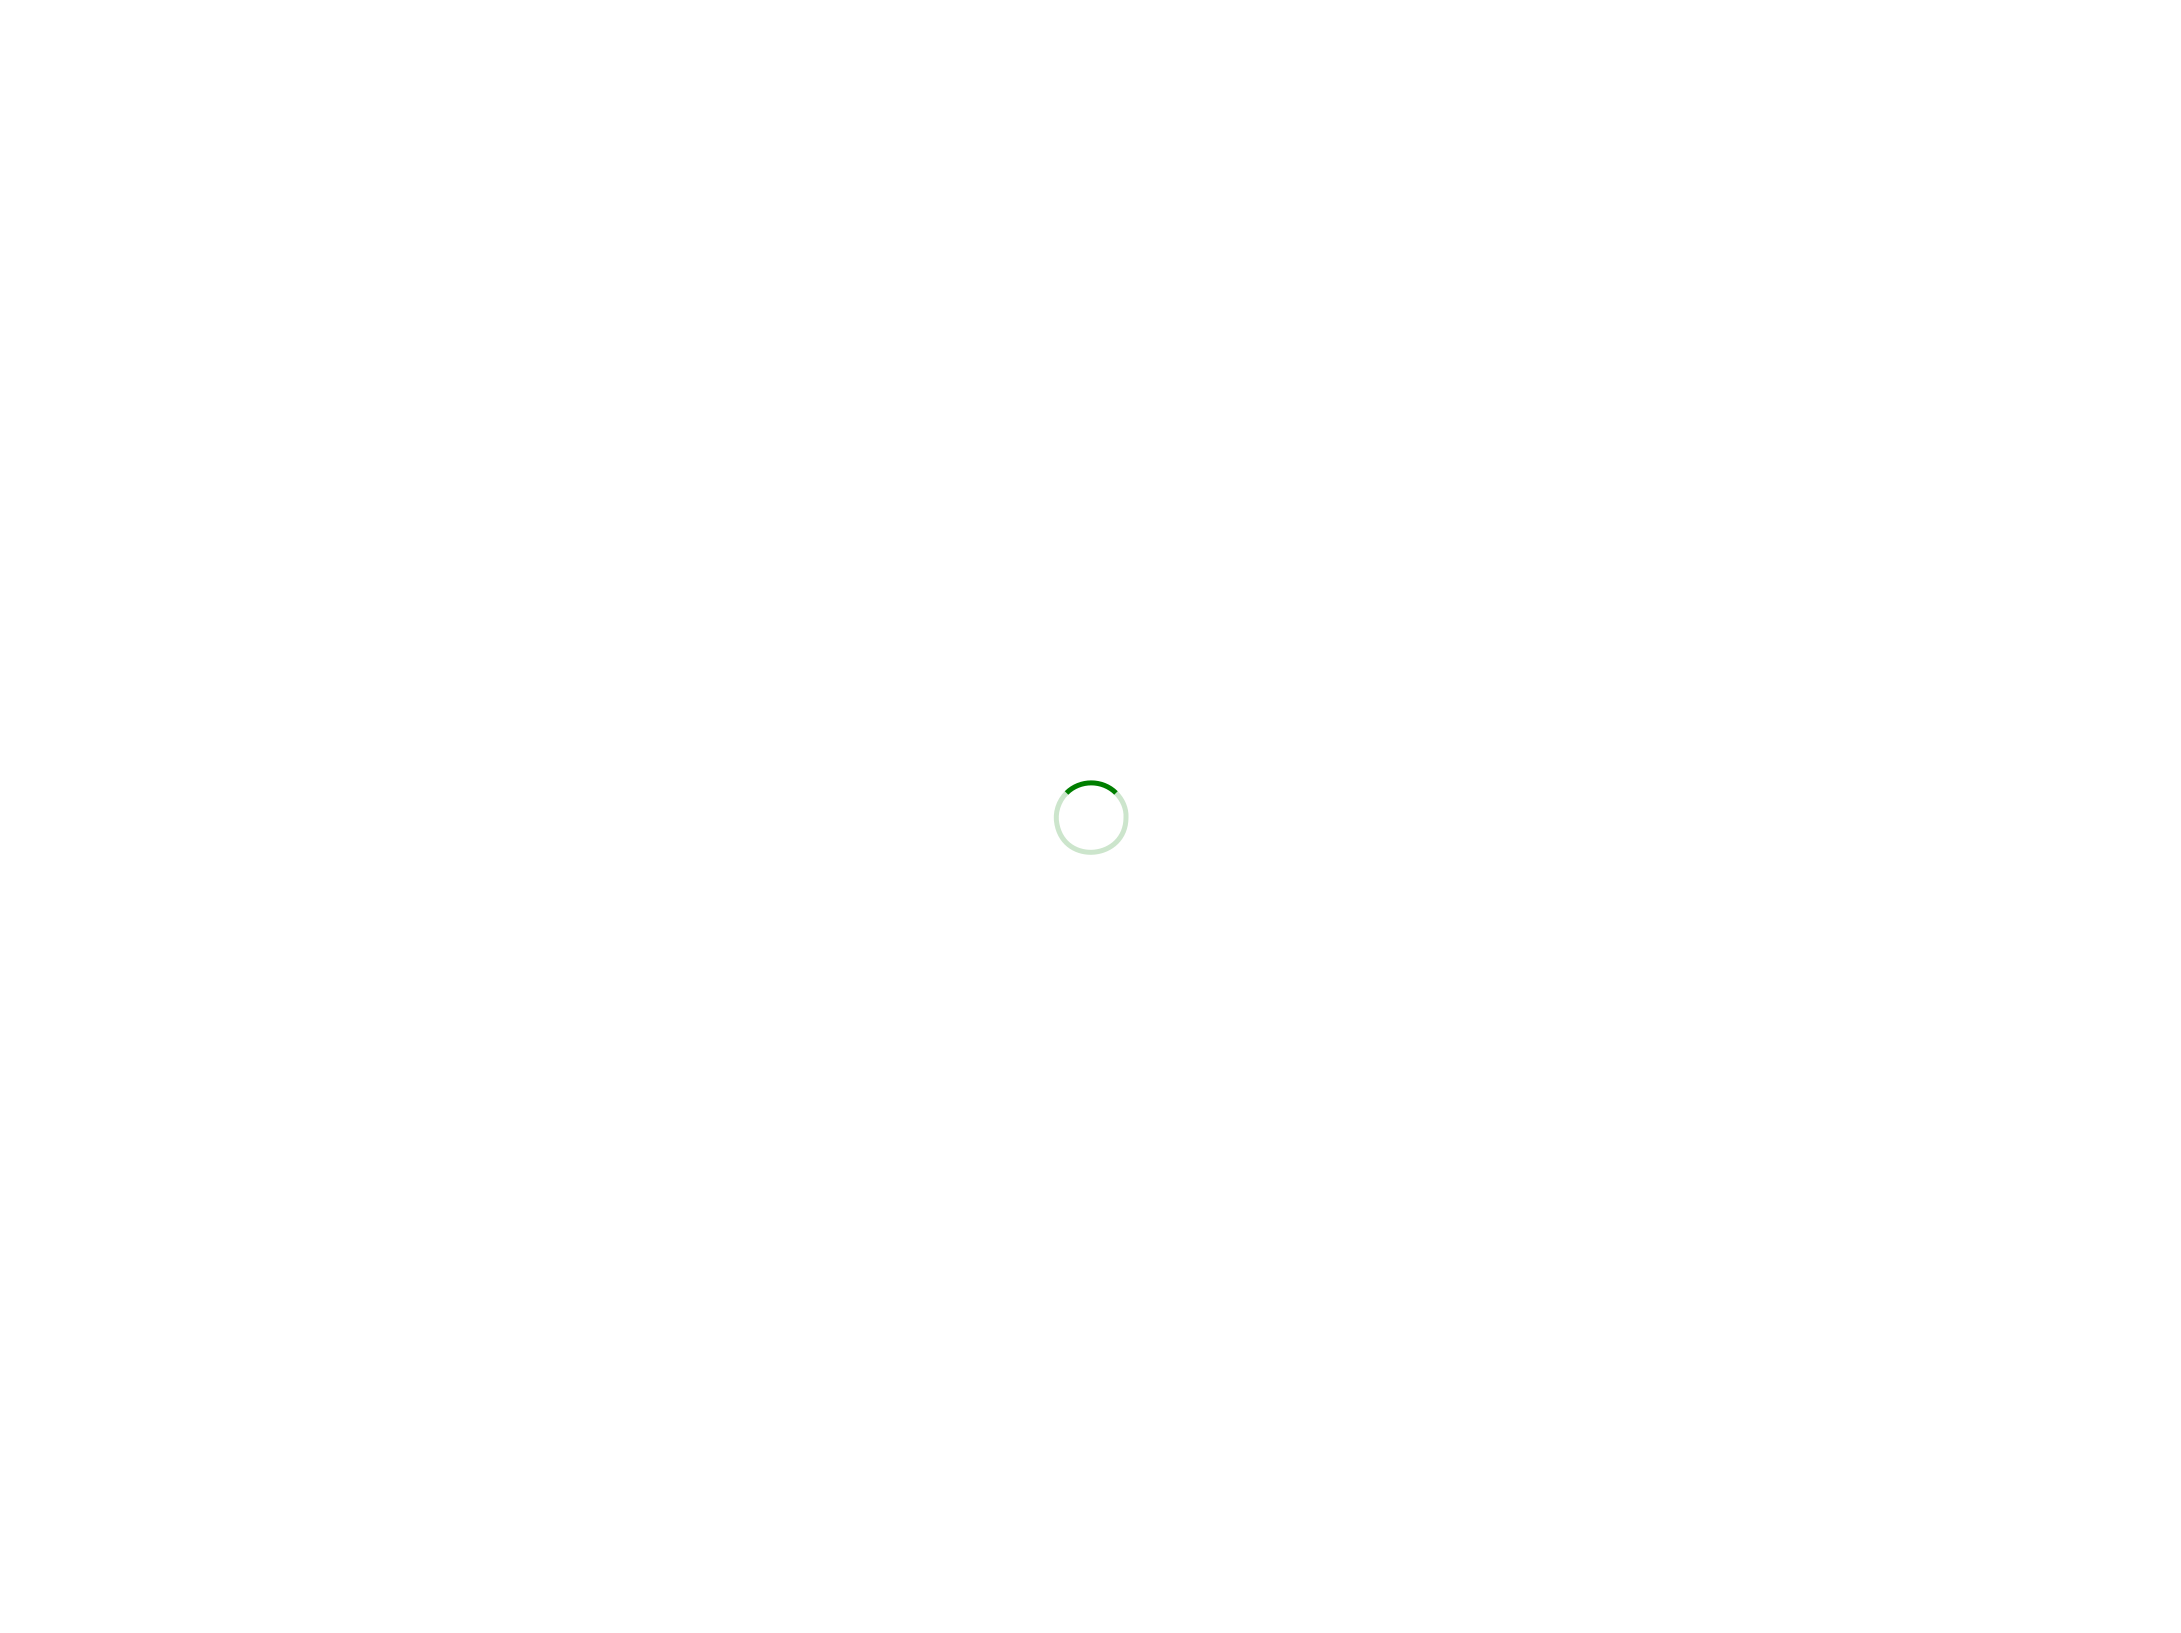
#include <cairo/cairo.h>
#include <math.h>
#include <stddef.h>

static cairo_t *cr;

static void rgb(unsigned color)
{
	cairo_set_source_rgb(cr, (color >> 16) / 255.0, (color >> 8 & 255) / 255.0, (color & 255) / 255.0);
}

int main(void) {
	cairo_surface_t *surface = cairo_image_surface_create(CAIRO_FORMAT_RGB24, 2181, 1633);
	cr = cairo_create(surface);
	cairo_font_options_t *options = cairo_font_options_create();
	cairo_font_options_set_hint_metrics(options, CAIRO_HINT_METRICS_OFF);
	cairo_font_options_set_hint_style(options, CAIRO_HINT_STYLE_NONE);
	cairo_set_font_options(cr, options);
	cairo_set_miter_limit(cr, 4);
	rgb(0xffffff);
	cairo_paint(cr);
	cairo_new_path(cr);
	cairo_move_to(cr, 1066.5, 793);
	cairo_curve_to(cr, 1080, 779.5, 1102.5, 779.5, 1116, 793);
	rgb(0x007e00);
	cairo_set_line_width(cr, 5);
	cairo_stroke(cr);
	cairo_new_path(cr);
	cairo_move_to(cr, 1116, 793);
	cairo_curve_to(cr, 1122.5, 799.5, 1126.5, 808.5, 1126, 817.5);
	cairo_curve_to(cr, 1126, 859.5, 1065, 865.5, 1057, 824.5);
	cairo_curve_to(cr, 1054.5, 813, 1058.5, 801, 1066.5, 793);
	cairo_set_source_rgba(cr, 0, 0.494, 0, 0.2);
	cairo_stroke(cr);
	cairo_surface_write_to_png(surface, "page.png");
	cairo_font_options_destroy(options);
	cairo_destroy(cr);
	cairo_surface_destroy(surface);
	return 0;
}
